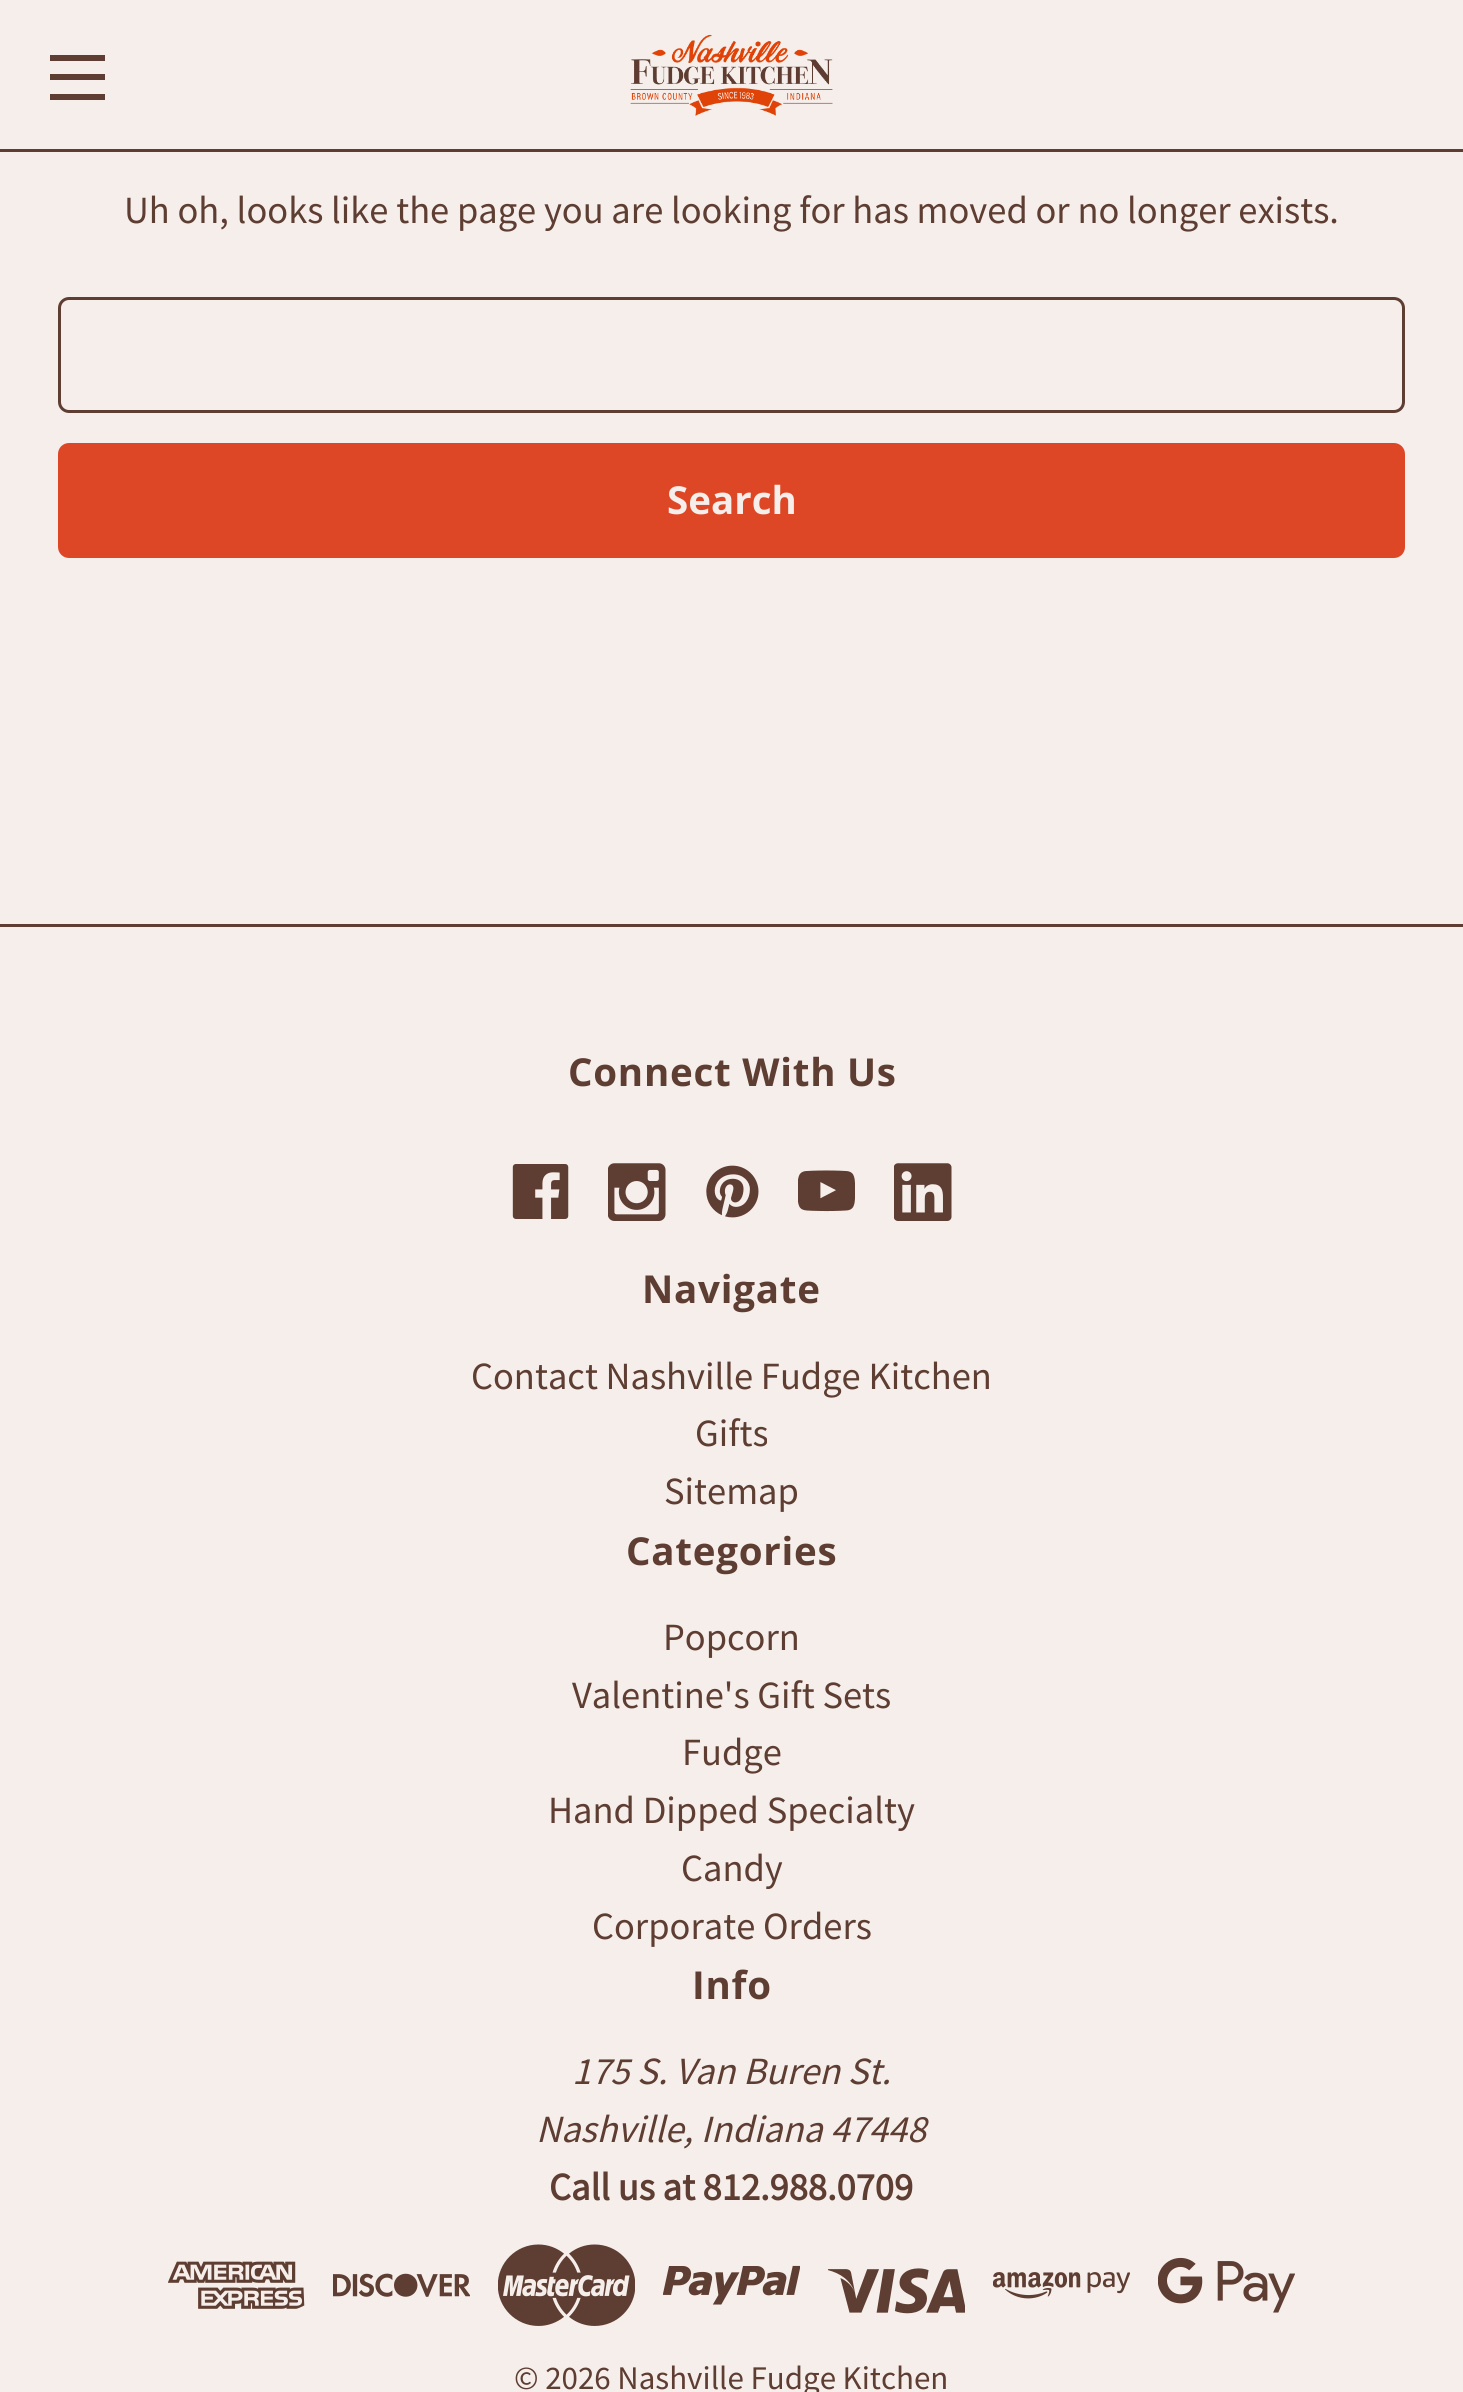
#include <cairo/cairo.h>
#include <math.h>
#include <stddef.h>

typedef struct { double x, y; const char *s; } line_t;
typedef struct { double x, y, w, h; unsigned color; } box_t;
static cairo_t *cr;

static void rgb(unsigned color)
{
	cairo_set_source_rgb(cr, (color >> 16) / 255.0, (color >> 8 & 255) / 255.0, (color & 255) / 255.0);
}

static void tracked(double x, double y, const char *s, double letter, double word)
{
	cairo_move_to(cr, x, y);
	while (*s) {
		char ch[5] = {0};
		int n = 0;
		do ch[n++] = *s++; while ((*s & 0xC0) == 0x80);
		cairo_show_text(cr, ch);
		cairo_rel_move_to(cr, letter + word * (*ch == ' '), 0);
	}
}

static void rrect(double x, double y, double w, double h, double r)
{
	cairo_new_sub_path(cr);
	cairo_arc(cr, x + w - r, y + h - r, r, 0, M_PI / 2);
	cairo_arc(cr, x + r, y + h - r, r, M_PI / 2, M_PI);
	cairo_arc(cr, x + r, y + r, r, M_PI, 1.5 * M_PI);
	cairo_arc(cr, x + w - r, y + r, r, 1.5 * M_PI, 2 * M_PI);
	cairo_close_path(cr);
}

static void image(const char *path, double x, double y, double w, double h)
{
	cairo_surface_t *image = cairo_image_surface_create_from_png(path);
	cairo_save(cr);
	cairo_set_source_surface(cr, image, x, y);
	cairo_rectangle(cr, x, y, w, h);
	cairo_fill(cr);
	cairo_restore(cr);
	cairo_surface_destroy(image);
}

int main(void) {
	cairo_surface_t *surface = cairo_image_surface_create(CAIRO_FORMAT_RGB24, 1463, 2392);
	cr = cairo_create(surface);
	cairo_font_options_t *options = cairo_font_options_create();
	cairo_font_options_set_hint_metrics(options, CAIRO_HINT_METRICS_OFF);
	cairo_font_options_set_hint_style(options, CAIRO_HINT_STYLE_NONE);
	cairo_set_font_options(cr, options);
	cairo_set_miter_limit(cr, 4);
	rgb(0xf5eeea);
	cairo_paint(cr);
	{
		static const box_t items[] = {
			{0, 149, 1463, 3, 0x5e3d32},
			{50, 74, 55, 6, 0x5e3d32},
			{50, 55, 55, 6, 0x5e3d32},
			{50, 94, 55, 6, 0x5e3d32},
		};
		for (size_t i = 0; i < sizeof items / sizeof *items; i++) {
			rgb(items[i].color);
			cairo_rectangle(cr, items[i].x, items[i].y, items[i].w, items[i].h);
			cairo_fill(cr);
		}
	}
	image("img/1.png", 630, 34, 203, 82);
	rrect(59.5, 298.5, 1344, 113, 9.5);
	cairo_set_line_width(cr, 3);
	cairo_stroke(cr);
	rgb(0xde4726);
	rrect(59.5, 444.5, 1344, 112, 9.5);
	cairo_fill_preserve(cr);
	cairo_stroke(cr);
	rgb(0x5e3d32);
	cairo_rectangle(cr, 0, 924, 1463, 3);
	cairo_fill(cr);
	image("img/2.png", 512, 1164, 57, 55);
	image("img/3.png", 608, 1163, 58, 58);
	image("img/4.png", 706, 1165, 53, 53);
	image("img/5.png", 798, 1170, 57, 42);
	image("img/6.png", 894, 1163, 58, 58);
	image("img/7.png", 168, 2261, 137, 48);
	image("img/8.png", 333, 2273, 137, 24);
	image("img/9.png", 498, 2244, 137, 82);
	image("img/10.png", 663, 2265, 137, 40);
	image("img/11.png", 828, 2268, 137, 46);
	image("img/12.png", 993, 2272, 137, 27);
	image("img/13.png", 1158, 2257, 137, 56);
	cairo_select_font_face(cr, "Source Sans Pro", CAIRO_FONT_SLANT_NORMAL, CAIRO_FONT_WEIGHT_NORMAL);
	cairo_set_font_size(cr, 38.5);
	cairo_move_to(cr, 124, 223);
	cairo_show_text(cr, "Uh oh, looks like the page you are looking for has moved or no longer exists.");
	cairo_select_font_face(cr, "Open Sans", CAIRO_FONT_SLANT_NORMAL, CAIRO_FONT_WEIGHT_BOLD);
	rgb(0xf5eeea);
	cairo_move_to(cr, 667, 514);
	cairo_show_text(cr, "Search");
	rgb(0x5e3d32);
	tracked(568, 1086, "Connect With Us", 0.75, 0);
	tracked(642, 1303, "Navigate", 0.75, 0);
	cairo_select_font_face(cr, "Source Sans Pro", CAIRO_FONT_SLANT_NORMAL, CAIRO_FONT_WEIGHT_NORMAL);
	{
		static const line_t items[] = {
			{471, 1389, "Contact Nashville Fudge Kitchen"},
			{695, 1446, "Gifts"},
			{664, 1504, "Sitemap"},
		};
		for (size_t i = 0; i < sizeof items / sizeof *items; i++) {
			cairo_move_to(cr, items[i].x, items[i].y);
			cairo_show_text(cr, items[i].s);
		}
	}
	cairo_select_font_face(cr, "Open Sans", CAIRO_FONT_SLANT_NORMAL, CAIRO_FONT_WEIGHT_BOLD);
	tracked(626, 1565, "Categories", 0.75, 0);
	cairo_select_font_face(cr, "Source Sans Pro", CAIRO_FONT_SLANT_NORMAL, CAIRO_FONT_WEIGHT_NORMAL);
	{
		static const line_t items[] = {
			{663, 1650, "Popcorn"},
			{572, 1708, "Valentine's Gift Sets"},
			{682, 1765, "Fudge"},
			{548, 1823, "Hand Dipped Specialty"},
			{681, 1881, "Candy"},
			{592, 1939, "Corporate Orders"},
		};
		for (size_t i = 0; i < sizeof items / sizeof *items; i++) {
			cairo_move_to(cr, items[i].x, items[i].y);
			cairo_show_text(cr, items[i].s);
		}
	}
	cairo_select_font_face(cr, "Open Sans", CAIRO_FONT_SLANT_NORMAL, CAIRO_FONT_WEIGHT_BOLD);
	tracked(692, 1999, "Info", 0.75, 0);
	cairo_select_font_face(cr, "Source Sans Pro", CAIRO_FONT_SLANT_ITALIC, CAIRO_FONT_WEIGHT_NORMAL);
	cairo_move_to(cr, 572, 2084);
	cairo_show_text(cr, "175 S. Van Buren St.");
	cairo_move_to(cr, 536, 2142);
	cairo_show_text(cr, "Nashville, Indiana 47448");
	cairo_select_font_face(cr, "Source Sans Pro", CAIRO_FONT_SLANT_NORMAL, CAIRO_FONT_WEIGHT_BOLD);
	cairo_move_to(cr, 549, 2200);
	cairo_show_text(cr, "Call us at 812.988.0709");
	cairo_select_font_face(cr, "Source Sans Pro", CAIRO_FONT_SLANT_NORMAL, CAIRO_FONT_WEIGHT_NORMAL);
	cairo_set_font_size(cr, 33);
	cairo_move_to(cr, 514, 2389);
	cairo_show_text(cr, "© 2026 Nashville Fudge Kitchen");
	cairo_surface_write_to_png(surface, "page.png");
	cairo_font_options_destroy(options);
	cairo_destroy(cr);
	cairo_surface_destroy(surface);
	return 0;
}
